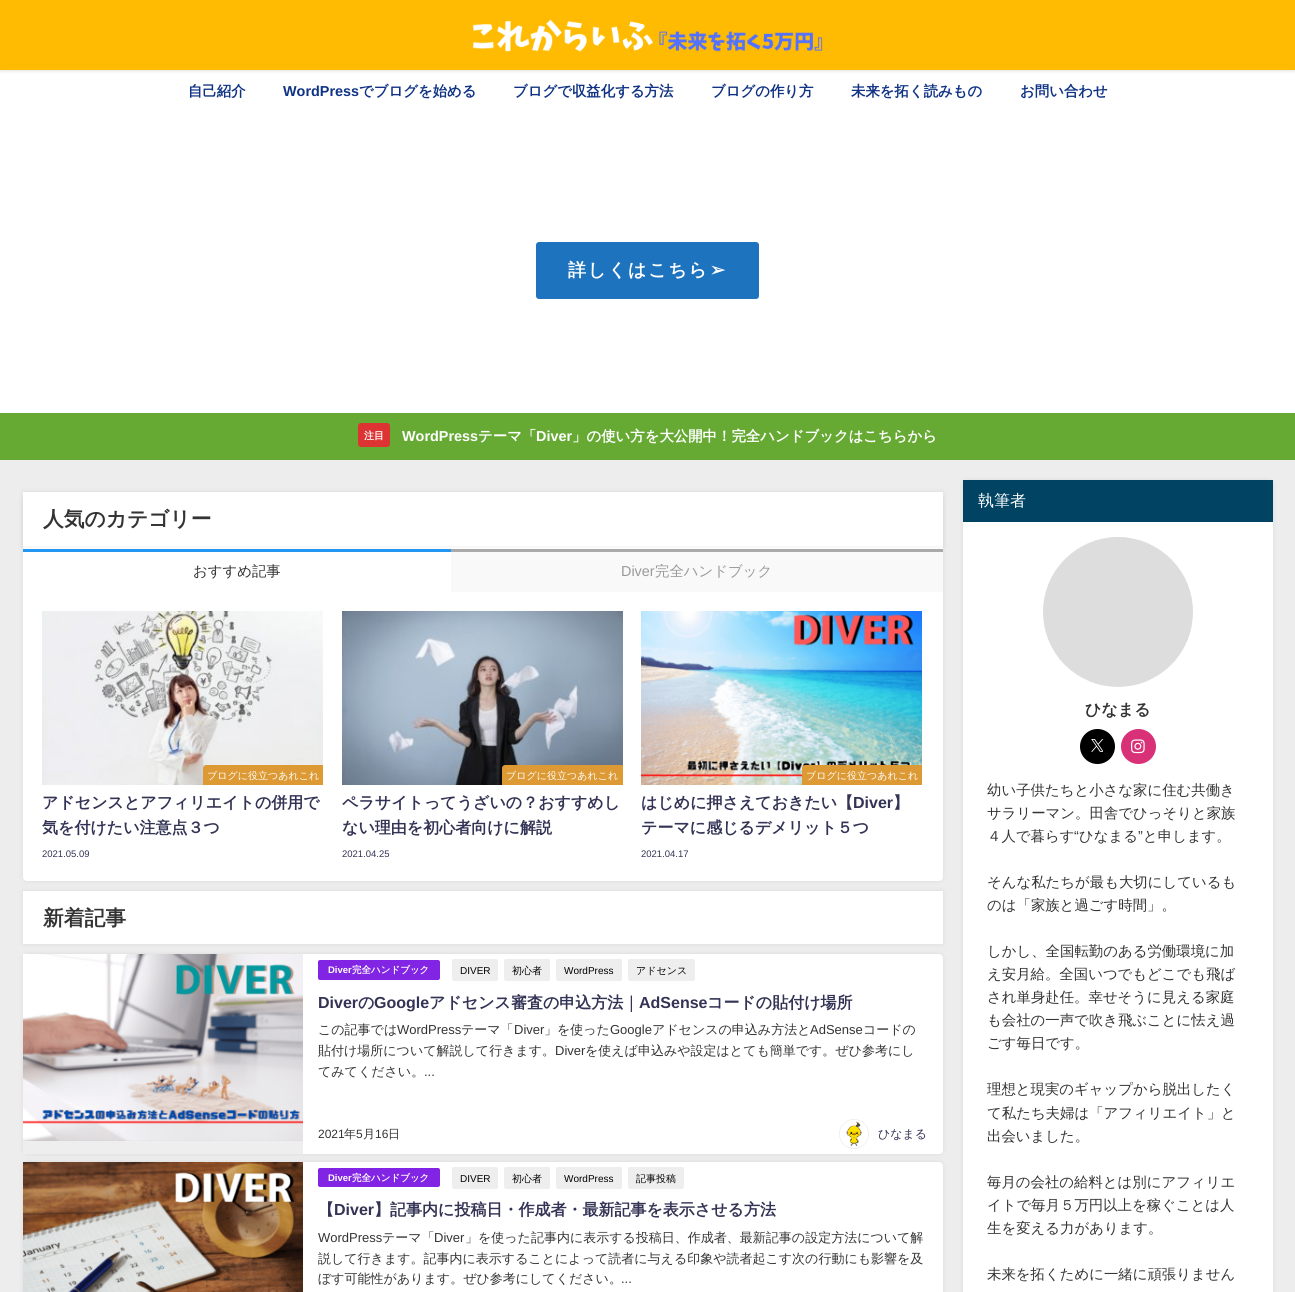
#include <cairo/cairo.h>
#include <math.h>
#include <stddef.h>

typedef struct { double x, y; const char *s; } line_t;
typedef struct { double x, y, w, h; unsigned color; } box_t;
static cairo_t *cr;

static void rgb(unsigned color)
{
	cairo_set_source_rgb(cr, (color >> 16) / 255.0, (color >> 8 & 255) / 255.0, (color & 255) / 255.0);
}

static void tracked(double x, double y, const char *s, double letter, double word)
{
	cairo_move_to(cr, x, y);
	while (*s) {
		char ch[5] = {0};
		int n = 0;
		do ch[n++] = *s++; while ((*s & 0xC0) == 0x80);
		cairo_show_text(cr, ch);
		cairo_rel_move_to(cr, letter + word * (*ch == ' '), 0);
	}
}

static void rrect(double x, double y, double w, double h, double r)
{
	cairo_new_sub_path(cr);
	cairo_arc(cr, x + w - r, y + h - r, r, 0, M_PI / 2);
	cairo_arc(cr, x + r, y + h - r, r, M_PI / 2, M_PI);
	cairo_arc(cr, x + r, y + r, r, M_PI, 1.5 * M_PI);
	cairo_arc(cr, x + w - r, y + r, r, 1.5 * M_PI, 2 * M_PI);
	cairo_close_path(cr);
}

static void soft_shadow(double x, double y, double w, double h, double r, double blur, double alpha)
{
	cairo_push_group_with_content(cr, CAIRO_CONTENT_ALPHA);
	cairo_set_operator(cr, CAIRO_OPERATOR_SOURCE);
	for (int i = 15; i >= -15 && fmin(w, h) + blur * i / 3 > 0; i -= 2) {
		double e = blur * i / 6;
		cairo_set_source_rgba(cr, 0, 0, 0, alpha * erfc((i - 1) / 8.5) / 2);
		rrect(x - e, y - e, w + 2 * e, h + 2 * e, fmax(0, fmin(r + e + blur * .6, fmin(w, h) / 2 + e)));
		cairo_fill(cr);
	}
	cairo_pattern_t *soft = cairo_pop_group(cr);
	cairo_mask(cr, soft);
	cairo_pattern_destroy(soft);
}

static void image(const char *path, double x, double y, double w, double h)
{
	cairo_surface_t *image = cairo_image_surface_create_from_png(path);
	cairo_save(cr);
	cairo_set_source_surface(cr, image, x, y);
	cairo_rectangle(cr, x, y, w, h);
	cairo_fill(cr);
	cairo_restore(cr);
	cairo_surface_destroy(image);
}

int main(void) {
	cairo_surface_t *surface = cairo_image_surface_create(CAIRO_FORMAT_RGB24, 1295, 1292);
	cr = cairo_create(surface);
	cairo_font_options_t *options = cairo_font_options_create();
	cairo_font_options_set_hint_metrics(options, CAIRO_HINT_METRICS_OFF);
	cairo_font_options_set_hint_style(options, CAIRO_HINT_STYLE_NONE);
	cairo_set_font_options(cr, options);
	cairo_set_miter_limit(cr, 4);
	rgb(0xededed);
	cairo_paint(cr);
	rgb(0xffffff);
	cairo_rectangle(cr, 0, 70, 1295, 343);
	cairo_fill(cr);
	rgb(0x000000);
	soft_shadow(0, 0, 1295, 70, 0, 2, 0.2);
	rgb(0xffbb02);
	cairo_rectangle(cr, 0, 0, 1295, 70);
	cairo_fill(cr);
	image("img/1.png", 473, 19, 350, 33);
	rgb(0x1e73be);
	rrect(536, 242, 223, 57, 3);
	cairo_fill(cr);
	rgb(0x66aa34);
	cairo_rectangle(cr, 0, 413, 1295, 47);
	cairo_fill(cr);
	rgb(0xdd3333);
	rrect(358, 423, 32, 24, 3);
	cairo_fill(cr);
	rgb(0x969696);
	soft_shadow(23, 495, 920, 386, 4, 2.5, 0.2);
	rgb(0xffffff);
	rrect(23, 495, 920, 386, 4);
	cairo_fill(cr);
	{
		static const box_t items[] = {
			{23, 549, 428, 3, 0x2196f3},
			{451, 552, 492, 40, 0xf9f9f9},
			{451, 549, 492, 3, 0xaaaaaa},
		};
		for (size_t i = 0; i < sizeof items / sizeof *items; i++) {
			rgb(items[i].color);
			cairo_rectangle(cr, items[i].x, items[i].y, items[i].w, items[i].h);
			cairo_fill(cr);
		}
	}
	rgb(0x969696);
	soft_shadow(23, 492, 920, 54, 0, 2.5, 0.2);
	rgb(0xffffff);
	cairo_rectangle(cr, 23, 492, 920, 54);
	cairo_fill(cr);
	image("img/2.png", 42, 611, 281, 174);
	rgb(0xdd9933);
	cairo_new_path(cr);
	cairo_move_to(cr, 206, 765);
	cairo_line_to(cr, 323, 765);
	cairo_line_to(cr, 323, 785);
	cairo_line_to(cr, 203, 785);
	cairo_line_to(cr, 203, 768);
	cairo_curve_to(cr, 203, 766.5, 204.5, 765, 206, 765);
	cairo_close_path(cr);
	cairo_fill(cr);
	image("img/3.png", 342, 611, 281, 174);
	cairo_new_path(cr);
	cairo_move_to(cr, 505, 765);
	cairo_line_to(cr, 623, 765);
	cairo_line_to(cr, 623, 785);
	cairo_line_to(cr, 502, 785);
	cairo_line_to(cr, 502, 768);
	cairo_curve_to(cr, 502, 766.5, 503.5, 765, 505, 765);
	cairo_close_path(cr);
	cairo_fill(cr);
	image("img/4.png", 641, 611, 281, 174);
	cairo_new_path(cr);
	cairo_move_to(cr, 805, 765);
	cairo_line_to(cr, 922, 765);
	cairo_line_to(cr, 922, 785);
	cairo_line_to(cr, 802, 785);
	cairo_line_to(cr, 802, 768);
	cairo_curve_to(cr, 802, 766.5, 803.5, 765, 805, 765);
	cairo_close_path(cr);
	cairo_fill(cr);
	rgb(0x969696);
	soft_shadow(23, 891, 920, 53, 0, 2.5, 0.2);
	rgb(0xffffff);
	cairo_rectangle(cr, 23, 891, 920, 53);
	cairo_fill(cr);
	rgb(0x969696);
	soft_shadow(23, 954, 920, 200, 4, 2.5, 0.2);
	rgb(0xffffff);
	rrect(23, 954, 920, 200, 4);
	cairo_fill(cr);
	rgb(0xeeeeee);
	cairo_rectangle(cr, 23, 1141, 280, 13);
	cairo_fill(cr);
	image("img/5.png", 23, 954, 280, 187);
	rgb(0x8224e3);
	rrect(318, 960, 122, 20, 2);
	cairo_fill(cr);
	rgb(0xeeeeee);
	rrect(452, 959, 46, 22, 2);
	cairo_fill(cr);
	rrect(504, 959, 46, 22, 2);
	cairo_fill(cr);
	rrect(556, 959, 66, 22, 2);
	cairo_fill(cr);
	rrect(628, 959, 67, 22, 2);
	cairo_fill(cr);
	cairo_arc(cr, 854, 1134, 14.5, 0, 2 * M_PI);
	cairo_set_line_width(cr, 1);
	cairo_stroke(cr);
	image("img/6.png", 840, 1120, 28, 27);
	rgb(0x969696);
	soft_shadow(23, 1162, 920, 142, 4, 2.5, 0.2);
	rgb(0xffffff);
	rrect(23, 1162, 920, 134, 4);
	cairo_fill(cr);
	image("img/7.png", 23, 1162, 280, 130);
	rgb(0x8224e3);
	rrect(318, 1168, 122, 19, 2);
	cairo_fill(cr);
	rgb(0xeeeeee);
	rrect(452, 1167, 46, 22, 2);
	cairo_fill(cr);
	rrect(504, 1167, 46, 22, 2);
	cairo_fill(cr);
	rrect(556, 1167, 66, 22, 2);
	cairo_fill(cr);
	rrect(628, 1167, 56, 22, 2);
	cairo_fill(cr);
	rgb(0x969696);
	soft_shadow(963, 480, 310, 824, 4, 2.5, 0.2);
	rgb(0xffffff);
	cairo_rectangle(cr, 963, 522, 310, 770);
	cairo_fill(cr);
	rgb(0x004363);
	cairo_rectangle(cr, 963, 480, 310, 42);
	cairo_fill(cr);
	image("img/8.png", 1043, 537, 150, 150);
	rgb(0x000000);
	cairo_arc(cr, 1097.5, 746.5, 17.5, 0, 2 * M_PI);
	cairo_fill(cr);
	image("img/9.png", 1091, 739, 12, 13);
	rgb(0xd93177);
	cairo_arc(cr, 1138.5, 746.5, 17.5, 0, 2 * M_PI);
	cairo_fill(cr);
	image("img/10.png", 1131, 739, 14, 15);
	cairo_select_font_face(cr, "WenQuanYi Zen Hei", CAIRO_FONT_SLANT_NORMAL, CAIRO_FONT_WEIGHT_BOLD);
	cairo_set_font_size(cr, 14.4);
	rgb(0x0f3284);
	cairo_move_to(cr, 188, 96);
	cairo_show_text(cr, "自己紹介");
	cairo_select_font_face(cr, "Liberation Sans", CAIRO_FONT_SLANT_NORMAL, CAIRO_FONT_WEIGHT_BOLD);
	cairo_move_to(cr, 283, 96);
	cairo_show_text(cr, "WordPress");
	cairo_select_font_face(cr, "WenQuanYi Zen Hei", CAIRO_FONT_SLANT_NORMAL, CAIRO_FONT_WEIGHT_BOLD);
	{
		static const line_t items[] = {
			{359, 96, "でブログを始める"},
			{513, 96, "ブログで収益化する方法"},
			{711, 96, "ブログの作り方"},
			{851, 96, "未来を拓く読みもの"},
			{1020, 96, "お問い合わせ"},
		};
		for (size_t i = 0; i < sizeof items / sizeof *items; i++) {
			cairo_move_to(cr, items[i].x, items[i].y);
			cairo_show_text(cr, items[i].s);
		}
	}
	cairo_set_font_size(cr, 18);
	rgb(0xffffff);
	tracked(568, 276, "詳しくはこちら", 1.75, 0);
	cairo_select_font_face(cr, "DejaVu Sans", CAIRO_FONT_SLANT_NORMAL, CAIRO_FONT_WEIGHT_BOLD);
	tracked(710, 276, "➢", 1.75, 0);
	cairo_select_font_face(cr, "WenQuanYi Zen Hei", CAIRO_FONT_SLANT_NORMAL, CAIRO_FONT_WEIGHT_BOLD);
	cairo_set_font_size(cr, 10);
	cairo_move_to(cr, 364, 439);
	cairo_show_text(cr, "注目");
	cairo_select_font_face(cr, "Liberation Sans", CAIRO_FONT_SLANT_NORMAL, CAIRO_FONT_WEIGHT_BOLD);
	cairo_set_font_size(cr, 14.4);
	cairo_move_to(cr, 402, 441);
	cairo_show_text(cr, "WordPress");
	cairo_select_font_face(cr, "WenQuanYi Zen Hei", CAIRO_FONT_SLANT_NORMAL, CAIRO_FONT_WEIGHT_BOLD);
	cairo_move_to(cr, 478, 441);
	cairo_show_text(cr, "テーマ「");
	cairo_select_font_face(cr, "Liberation Sans", CAIRO_FONT_SLANT_NORMAL, CAIRO_FONT_WEIGHT_BOLD);
	cairo_move_to(cr, 536, 441);
	cairo_show_text(cr, "Diver");
	cairo_select_font_face(cr, "WenQuanYi Zen Hei", CAIRO_FONT_SLANT_NORMAL, CAIRO_FONT_WEIGHT_BOLD);
	cairo_move_to(cr, 572, 441);
	cairo_show_text(cr, "」の使い方を大公開中！完全ハンドブックはこちらから");
	cairo_set_font_size(cr, 20.75);
	rgb(0x333333);
	cairo_move_to(cr, 43, 526);
	cairo_show_text(cr, "人気のカテゴリー");
	cairo_select_font_face(cr, "WenQuanYi Zen Hei Medium", CAIRO_FONT_SLANT_NORMAL, CAIRO_FONT_WEIGHT_NORMAL);
	cairo_set_font_size(cr, 14.4);
	cairo_move_to(cr, 193, 576);
	cairo_show_text(cr, "おすすめ記事");
	cairo_select_font_face(cr, "Liberation Sans", CAIRO_FONT_SLANT_NORMAL, CAIRO_FONT_WEIGHT_NORMAL);
	rgb(0x999999);
	cairo_move_to(cr, 621, 576);
	cairo_show_text(cr, "Diver");
	cairo_select_font_face(cr, "WenQuanYi Zen Hei Medium", CAIRO_FONT_SLANT_NORMAL, CAIRO_FONT_WEIGHT_NORMAL);
	cairo_move_to(cr, 655, 576);
	cairo_show_text(cr, "完全ハンドブック");
	cairo_set_font_size(cr, 10);
	rgb(0xffffff);
	cairo_move_to(cr, 207, 779);
	cairo_show_text(cr, "ブログに役立つあれこれ");
	cairo_select_font_face(cr, "WenQuanYi Zen Hei", CAIRO_FONT_SLANT_NORMAL, CAIRO_FONT_WEIGHT_BOLD);
	cairo_set_font_size(cr, 16);
	rgb(0x333355);
	cairo_move_to(cr, 42, 808);
	cairo_show_text(cr, "アドセンスとアフィリエイトの併用で");
	cairo_move_to(cr, 42, 833);
	cairo_show_text(cr, "気を付けたい注意点３つ");
	cairo_select_font_face(cr, "Liberation Sans", CAIRO_FONT_SLANT_NORMAL, CAIRO_FONT_WEIGHT_NORMAL);
	cairo_set_font_size(cr, 9.5);
	cairo_move_to(cr, 42, 857);
	cairo_show_text(cr, "2021.05.09");
	cairo_select_font_face(cr, "WenQuanYi Zen Hei Medium", CAIRO_FONT_SLANT_NORMAL, CAIRO_FONT_WEIGHT_NORMAL);
	cairo_set_font_size(cr, 10);
	rgb(0xffffff);
	cairo_move_to(cr, 506, 779);
	cairo_show_text(cr, "ブログに役立つあれこれ");
	cairo_select_font_face(cr, "WenQuanYi Zen Hei", CAIRO_FONT_SLANT_NORMAL, CAIRO_FONT_WEIGHT_BOLD);
	cairo_set_font_size(cr, 16);
	rgb(0x333355);
	cairo_move_to(cr, 342, 808);
	cairo_show_text(cr, "ペラサイトってうざいの？おすすめし");
	cairo_move_to(cr, 342, 833);
	cairo_show_text(cr, "ない理由を初心者向けに解説");
	cairo_select_font_face(cr, "Liberation Sans", CAIRO_FONT_SLANT_NORMAL, CAIRO_FONT_WEIGHT_NORMAL);
	cairo_set_font_size(cr, 9.5);
	cairo_move_to(cr, 342, 857);
	cairo_show_text(cr, "2021.04.25");
	cairo_select_font_face(cr, "WenQuanYi Zen Hei Medium", CAIRO_FONT_SLANT_NORMAL, CAIRO_FONT_WEIGHT_NORMAL);
	cairo_set_font_size(cr, 10);
	rgb(0xffffff);
	cairo_move_to(cr, 806, 779);
	cairo_show_text(cr, "ブログに役立つあれこれ");
	cairo_select_font_face(cr, "WenQuanYi Zen Hei", CAIRO_FONT_SLANT_NORMAL, CAIRO_FONT_WEIGHT_BOLD);
	cairo_set_font_size(cr, 16);
	rgb(0x333355);
	cairo_move_to(cr, 641, 808);
	cairo_show_text(cr, "はじめに押さえておきたい【");
	cairo_select_font_face(cr, "Liberation Sans", CAIRO_FONT_SLANT_NORMAL, CAIRO_FONT_WEIGHT_BOLD);
	cairo_move_to(cr, 853, 808);
	cairo_show_text(cr, "Diver");
	cairo_select_font_face(cr, "WenQuanYi Zen Hei", CAIRO_FONT_SLANT_NORMAL, CAIRO_FONT_WEIGHT_BOLD);
	cairo_move_to(cr, 893, 808);
	cairo_show_text(cr, "】");
	cairo_move_to(cr, 641, 833);
	cairo_show_text(cr, "テーマに感じるデメリット５つ");
	cairo_select_font_face(cr, "Liberation Sans", CAIRO_FONT_SLANT_NORMAL, CAIRO_FONT_WEIGHT_NORMAL);
	cairo_set_font_size(cr, 9.5);
	cairo_move_to(cr, 641, 857);
	cairo_show_text(cr, "2021.04.17");
	cairo_select_font_face(cr, "WenQuanYi Zen Hei", CAIRO_FONT_SLANT_NORMAL, CAIRO_FONT_WEIGHT_BOLD);
	cairo_set_font_size(cr, 20.75);
	rgb(0x333333);
	cairo_move_to(cr, 43, 925);
	cairo_show_text(cr, "新着記事");
	cairo_select_font_face(cr, "Liberation Sans", CAIRO_FONT_SLANT_NORMAL, CAIRO_FONT_WEIGHT_BOLD);
	cairo_set_font_size(cr, 9.5);
	rgb(0xffffff);
	cairo_move_to(cr, 328, 973);
	cairo_show_text(cr, "Diver");
	cairo_select_font_face(cr, "WenQuanYi Zen Hei", CAIRO_FONT_SLANT_NORMAL, CAIRO_FONT_WEIGHT_BOLD);
	cairo_move_to(cr, 352, 973);
	cairo_show_text(cr, "完全ハンドブック");
	cairo_select_font_face(cr, "Liberation Sans", CAIRO_FONT_SLANT_NORMAL, CAIRO_FONT_WEIGHT_NORMAL);
	cairo_set_font_size(cr, 10);
	rgb(0x000000);
	cairo_move_to(cr, 460, 974);
	cairo_show_text(cr, "DIVER");
	cairo_select_font_face(cr, "WenQuanYi Zen Hei Medium", CAIRO_FONT_SLANT_NORMAL, CAIRO_FONT_WEIGHT_NORMAL);
	cairo_move_to(cr, 512, 974);
	cairo_show_text(cr, "初心者");
	cairo_select_font_face(cr, "Liberation Sans", CAIRO_FONT_SLANT_NORMAL, CAIRO_FONT_WEIGHT_NORMAL);
	cairo_move_to(cr, 564, 974);
	cairo_show_text(cr, "WordPress");
	cairo_select_font_face(cr, "WenQuanYi Zen Hei Medium", CAIRO_FONT_SLANT_NORMAL, CAIRO_FONT_WEIGHT_NORMAL);
	cairo_move_to(cr, 636, 974);
	cairo_show_text(cr, "アドセンス");
	cairo_select_font_face(cr, "Liberation Sans", CAIRO_FONT_SLANT_NORMAL, CAIRO_FONT_WEIGHT_BOLD);
	cairo_set_font_size(cr, 16);
	rgb(0x333355);
	cairo_move_to(cr, 318, 1008);
	cairo_show_text(cr, "Diver");
	cairo_select_font_face(cr, "WenQuanYi Zen Hei", CAIRO_FONT_SLANT_NORMAL, CAIRO_FONT_WEIGHT_BOLD);
	cairo_move_to(cr, 358, 1008);
	cairo_show_text(cr, "の");
	cairo_select_font_face(cr, "Liberation Sans", CAIRO_FONT_SLANT_NORMAL, CAIRO_FONT_WEIGHT_BOLD);
	cairo_move_to(cr, 374, 1008);
	cairo_show_text(cr, "Google");
	cairo_select_font_face(cr, "WenQuanYi Zen Hei", CAIRO_FONT_SLANT_NORMAL, CAIRO_FONT_WEIGHT_BOLD);
	cairo_move_to(cr, 429, 1008);
	cairo_show_text(cr, "アドセンス審査の申込方法｜");
	cairo_select_font_face(cr, "Liberation Sans", CAIRO_FONT_SLANT_NORMAL, CAIRO_FONT_WEIGHT_BOLD);
	cairo_move_to(cr, 639, 1008);
	cairo_show_text(cr, "AdSense");
	cairo_select_font_face(cr, "WenQuanYi Zen Hei", CAIRO_FONT_SLANT_NORMAL, CAIRO_FONT_WEIGHT_BOLD);
	cairo_move_to(cr, 707, 1008);
	cairo_show_text(cr, "コードの貼付け場所");
	cairo_select_font_face(cr, "WenQuanYi Zen Hei Medium", CAIRO_FONT_SLANT_NORMAL, CAIRO_FONT_WEIGHT_NORMAL);
	cairo_set_font_size(cr, 13);
	rgb(0x333333);
	cairo_move_to(cr, 318, 1034);
	cairo_show_text(cr, "この記事では");
	cairo_select_font_face(cr, "Liberation Sans", CAIRO_FONT_SLANT_NORMAL, CAIRO_FONT_WEIGHT_NORMAL);
	cairo_move_to(cr, 397, 1034);
	cairo_show_text(cr, "WordPress");
	cairo_select_font_face(cr, "WenQuanYi Zen Hei Medium", CAIRO_FONT_SLANT_NORMAL, CAIRO_FONT_WEIGHT_NORMAL);
	cairo_move_to(cr, 461, 1034);
	cairo_show_text(cr, "テーマ「");
	cairo_select_font_face(cr, "Liberation Sans", CAIRO_FONT_SLANT_NORMAL, CAIRO_FONT_WEIGHT_NORMAL);
	cairo_move_to(cr, 514, 1034);
	cairo_show_text(cr, "Diver");
	cairo_select_font_face(cr, "WenQuanYi Zen Hei Medium", CAIRO_FONT_SLANT_NORMAL, CAIRO_FONT_WEIGHT_NORMAL);
	cairo_move_to(cr, 544, 1034);
	cairo_show_text(cr, "」を使った");
	cairo_select_font_face(cr, "Liberation Sans", CAIRO_FONT_SLANT_NORMAL, CAIRO_FONT_WEIGHT_NORMAL);
	cairo_move_to(cr, 610, 1034);
	cairo_show_text(cr, "Google");
	cairo_select_font_face(cr, "WenQuanYi Zen Hei Medium", CAIRO_FONT_SLANT_NORMAL, CAIRO_FONT_WEIGHT_NORMAL);
	cairo_move_to(cr, 652, 1034);
	cairo_show_text(cr, "アドセンスの申込み方法と");
	cairo_select_font_face(cr, "Liberation Sans", CAIRO_FONT_SLANT_NORMAL, CAIRO_FONT_WEIGHT_NORMAL);
	cairo_move_to(cr, 810, 1034);
	cairo_show_text(cr, "AdSense");
	cairo_select_font_face(cr, "WenQuanYi Zen Hei Medium", CAIRO_FONT_SLANT_NORMAL, CAIRO_FONT_WEIGHT_NORMAL);
	cairo_move_to(cr, 863, 1034);
	cairo_show_text(cr, "コードの");
	cairo_move_to(cr, 318, 1055);
	cairo_show_text(cr, "貼付け場所について解説して行きます。");
	cairo_select_font_face(cr, "Liberation Sans", CAIRO_FONT_SLANT_NORMAL, CAIRO_FONT_WEIGHT_NORMAL);
	cairo_move_to(cr, 555, 1055);
	cairo_show_text(cr, "Diver");
	cairo_select_font_face(cr, "WenQuanYi Zen Hei Medium", CAIRO_FONT_SLANT_NORMAL, CAIRO_FONT_WEIGHT_NORMAL);
	cairo_move_to(cr, 585, 1055);
	cairo_show_text(cr, "を使えば申込みや設定はとても簡単です。ぜひ参考にし");
	cairo_move_to(cr, 318, 1076);
	cairo_show_text(cr, "てみてください。");
	cairo_select_font_face(cr, "Liberation Sans", CAIRO_FONT_SLANT_NORMAL, CAIRO_FONT_WEIGHT_NORMAL);
	cairo_move_to(cr, 424, 1076);
	cairo_show_text(cr, "...");
	cairo_set_font_size(cr, 12);
	cairo_move_to(cr, 318, 1138);
	cairo_show_text(cr, "2021");
	cairo_select_font_face(cr, "WenQuanYi Zen Hei Medium", CAIRO_FONT_SLANT_NORMAL, CAIRO_FONT_WEIGHT_NORMAL);
	cairo_move_to(cr, 344, 1138);
	cairo_show_text(cr, "年");
	cairo_select_font_face(cr, "Liberation Sans", CAIRO_FONT_SLANT_NORMAL, CAIRO_FONT_WEIGHT_NORMAL);
	cairo_move_to(cr, 356, 1138);
	cairo_show_text(cr, "5");
	cairo_select_font_face(cr, "WenQuanYi Zen Hei Medium", CAIRO_FONT_SLANT_NORMAL, CAIRO_FONT_WEIGHT_NORMAL);
	cairo_move_to(cr, 363, 1138);
	cairo_show_text(cr, "月");
	cairo_select_font_face(cr, "Liberation Sans", CAIRO_FONT_SLANT_NORMAL, CAIRO_FONT_WEIGHT_NORMAL);
	cairo_move_to(cr, 375, 1138);
	cairo_show_text(cr, "16");
	cairo_select_font_face(cr, "WenQuanYi Zen Hei Medium", CAIRO_FONT_SLANT_NORMAL, CAIRO_FONT_WEIGHT_NORMAL);
	cairo_move_to(cr, 388, 1138);
	cairo_show_text(cr, "日");
	rgb(0x333355);
	cairo_move_to(cr, 878, 1138);
	cairo_show_text(cr, "ひなまる");
	cairo_select_font_face(cr, "Liberation Sans", CAIRO_FONT_SLANT_NORMAL, CAIRO_FONT_WEIGHT_BOLD);
	cairo_set_font_size(cr, 9.5);
	rgb(0xffffff);
	cairo_move_to(cr, 328, 1181);
	cairo_show_text(cr, "Diver");
	cairo_select_font_face(cr, "WenQuanYi Zen Hei", CAIRO_FONT_SLANT_NORMAL, CAIRO_FONT_WEIGHT_BOLD);
	cairo_move_to(cr, 352, 1181);
	cairo_show_text(cr, "完全ハンドブック");
	cairo_select_font_face(cr, "Liberation Sans", CAIRO_FONT_SLANT_NORMAL, CAIRO_FONT_WEIGHT_NORMAL);
	cairo_set_font_size(cr, 10);
	rgb(0x000000);
	cairo_move_to(cr, 460, 1182);
	cairo_show_text(cr, "DIVER");
	cairo_select_font_face(cr, "WenQuanYi Zen Hei Medium", CAIRO_FONT_SLANT_NORMAL, CAIRO_FONT_WEIGHT_NORMAL);
	cairo_move_to(cr, 512, 1182);
	cairo_show_text(cr, "初心者");
	cairo_select_font_face(cr, "Liberation Sans", CAIRO_FONT_SLANT_NORMAL, CAIRO_FONT_WEIGHT_NORMAL);
	cairo_move_to(cr, 564, 1182);
	cairo_show_text(cr, "WordPress");
	cairo_select_font_face(cr, "WenQuanYi Zen Hei Medium", CAIRO_FONT_SLANT_NORMAL, CAIRO_FONT_WEIGHT_NORMAL);
	cairo_move_to(cr, 636, 1182);
	cairo_show_text(cr, "記事投稿");
	cairo_select_font_face(cr, "WenQuanYi Zen Hei", CAIRO_FONT_SLANT_NORMAL, CAIRO_FONT_WEIGHT_BOLD);
	cairo_set_font_size(cr, 16);
	rgb(0x333355);
	cairo_move_to(cr, 318, 1215);
	cairo_show_text(cr, "【");
	cairo_select_font_face(cr, "Liberation Sans", CAIRO_FONT_SLANT_NORMAL, CAIRO_FONT_WEIGHT_BOLD);
	cairo_move_to(cr, 334, 1215);
	cairo_show_text(cr, "Diver");
	cairo_select_font_face(cr, "WenQuanYi Zen Hei", CAIRO_FONT_SLANT_NORMAL, CAIRO_FONT_WEIGHT_BOLD);
	cairo_move_to(cr, 374, 1215);
	cairo_show_text(cr, "】記事内に投稿日・作成者・最新記事を表示させる方法");
	cairo_select_font_face(cr, "Liberation Sans", CAIRO_FONT_SLANT_NORMAL, CAIRO_FONT_WEIGHT_NORMAL);
	cairo_set_font_size(cr, 13);
	rgb(0x333333);
	cairo_move_to(cr, 318, 1242);
	cairo_show_text(cr, "WordPress");
	cairo_select_font_face(cr, "WenQuanYi Zen Hei Medium", CAIRO_FONT_SLANT_NORMAL, CAIRO_FONT_WEIGHT_NORMAL);
	cairo_move_to(cr, 382, 1242);
	cairo_show_text(cr, "テーマ「");
	cairo_select_font_face(cr, "Liberation Sans", CAIRO_FONT_SLANT_NORMAL, CAIRO_FONT_WEIGHT_NORMAL);
	cairo_move_to(cr, 434, 1242);
	cairo_show_text(cr, "Diver");
	cairo_select_font_face(cr, "WenQuanYi Zen Hei Medium", CAIRO_FONT_SLANT_NORMAL, CAIRO_FONT_WEIGHT_NORMAL);
	cairo_move_to(cr, 465, 1242);
	cairo_show_text(cr, "」を使った記事内に表示する投稿日、作成者、最新記事の設定方法について解");
	cairo_save(cr);
	cairo_rectangle(cr, 318, 1228, 610, 58);
	cairo_clip(cr);
	cairo_move_to(cr, 318, 1263);
	cairo_show_text(cr, "説して行きます。記事内に表示することによって読者に与える印象や読者起こす次の行動にも影響を及");
	cairo_restore(cr);
	cairo_move_to(cr, 318, 1283);
	cairo_show_text(cr, "ぼす可能性があります。ぜひ参考にしてください。");
	cairo_select_font_face(cr, "Liberation Sans", CAIRO_FONT_SLANT_NORMAL, CAIRO_FONT_WEIGHT_NORMAL);
	cairo_move_to(cr, 621, 1283);
	cairo_show_text(cr, "...");
	cairo_select_font_face(cr, "WenQuanYi Zen Hei Medium", CAIRO_FONT_SLANT_NORMAL, CAIRO_FONT_WEIGHT_NORMAL);
	cairo_set_font_size(cr, 16);
	rgb(0xffffff);
	cairo_move_to(cr, 978, 506);
	cairo_show_text(cr, "執筆者");
	cairo_select_font_face(cr, "WenQuanYi Zen Hei", CAIRO_FONT_SLANT_NORMAL, CAIRO_FONT_WEIGHT_BOLD);
	rgb(0x333333);
	cairo_move_to(cr, 1085, 715);
	cairo_show_text(cr, "ひなまる");
	cairo_select_font_face(cr, "WenQuanYi Zen Hei Medium", CAIRO_FONT_SLANT_NORMAL, CAIRO_FONT_WEIGHT_NORMAL);
	cairo_set_font_size(cr, 14.4);
	{
		static const line_t items[] = {
			{987, 795, "幼い子供たちと小さな家に住む共働き"},
			{987, 818, "サラリーマン。田舎でひっそりと家族"},
			{987, 841, "４人で暮らす"},
		};
		for (size_t i = 0; i < sizeof items / sizeof *items; i++) {
			cairo_move_to(cr, items[i].x, items[i].y);
			cairo_show_text(cr, items[i].s);
		}
	}
	cairo_select_font_face(cr, "Liberation Sans", CAIRO_FONT_SLANT_NORMAL, CAIRO_FONT_WEIGHT_NORMAL);
	cairo_move_to(cr, 1074, 841);
	cairo_show_text(cr, "“");
	cairo_select_font_face(cr, "WenQuanYi Zen Hei Medium", CAIRO_FONT_SLANT_NORMAL, CAIRO_FONT_WEIGHT_NORMAL);
	cairo_move_to(cr, 1079, 841);
	cairo_show_text(cr, "ひなまる");
	cairo_select_font_face(cr, "Liberation Sans", CAIRO_FONT_SLANT_NORMAL, CAIRO_FONT_WEIGHT_NORMAL);
	cairo_move_to(cr, 1138, 841);
	cairo_show_text(cr, "”");
	cairo_select_font_face(cr, "WenQuanYi Zen Hei Medium", CAIRO_FONT_SLANT_NORMAL, CAIRO_FONT_WEIGHT_NORMAL);
	{
		static const line_t items[] = {
			{1143, 841, "と申します。"},
			{987, 887, "そんな私たちが最も大切にしているも"},
			{987, 910, "のは「家族と過ごす時間」。"},
			{987, 956, "しかし、全国転勤のある労働環境に加"},
			{987, 979, "え安月給。全国いつでもどこでも飛ば"},
			{987, 1002, "され単身赴任。幸せそうに見える家庭"},
			{987, 1025, "も会社の一声で吹き飛ぶことに怯え過"},
			{987, 1048, "ごす毎日です。"},
			{987, 1094, "理想と現実のギャップから脱出したく"},
			{987, 1118, "て私たち夫婦は「アフィリエイト」と"},
			{987, 1141, "出会いました。"},
			{987, 1187, "毎月の会社の給料とは別にアフィリエ"},
			{987, 1210, "イトで毎月５万円以上を稼ぐことは人"},
			{987, 1233, "生を変える力があります。"},
			{987, 1279, "未来を拓くために一緒に頑張りません"},
		};
		for (size_t i = 0; i < sizeof items / sizeof *items; i++) {
			cairo_move_to(cr, items[i].x, items[i].y);
			cairo_show_text(cr, items[i].s);
		}
	}
	cairo_surface_write_to_png(surface, "page.png");
	cairo_font_options_destroy(options);
	cairo_destroy(cr);
	cairo_surface_destroy(surface);
	return 0;
}
